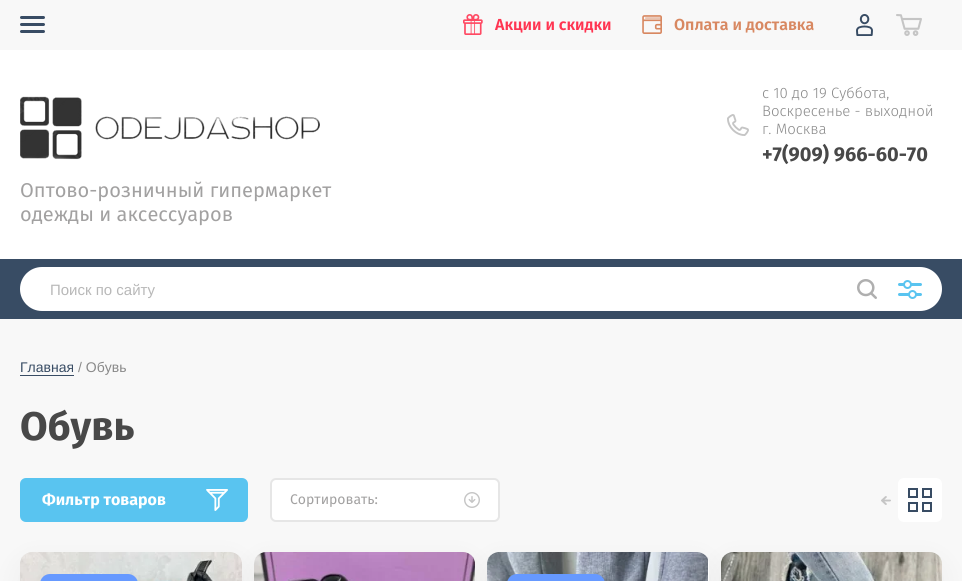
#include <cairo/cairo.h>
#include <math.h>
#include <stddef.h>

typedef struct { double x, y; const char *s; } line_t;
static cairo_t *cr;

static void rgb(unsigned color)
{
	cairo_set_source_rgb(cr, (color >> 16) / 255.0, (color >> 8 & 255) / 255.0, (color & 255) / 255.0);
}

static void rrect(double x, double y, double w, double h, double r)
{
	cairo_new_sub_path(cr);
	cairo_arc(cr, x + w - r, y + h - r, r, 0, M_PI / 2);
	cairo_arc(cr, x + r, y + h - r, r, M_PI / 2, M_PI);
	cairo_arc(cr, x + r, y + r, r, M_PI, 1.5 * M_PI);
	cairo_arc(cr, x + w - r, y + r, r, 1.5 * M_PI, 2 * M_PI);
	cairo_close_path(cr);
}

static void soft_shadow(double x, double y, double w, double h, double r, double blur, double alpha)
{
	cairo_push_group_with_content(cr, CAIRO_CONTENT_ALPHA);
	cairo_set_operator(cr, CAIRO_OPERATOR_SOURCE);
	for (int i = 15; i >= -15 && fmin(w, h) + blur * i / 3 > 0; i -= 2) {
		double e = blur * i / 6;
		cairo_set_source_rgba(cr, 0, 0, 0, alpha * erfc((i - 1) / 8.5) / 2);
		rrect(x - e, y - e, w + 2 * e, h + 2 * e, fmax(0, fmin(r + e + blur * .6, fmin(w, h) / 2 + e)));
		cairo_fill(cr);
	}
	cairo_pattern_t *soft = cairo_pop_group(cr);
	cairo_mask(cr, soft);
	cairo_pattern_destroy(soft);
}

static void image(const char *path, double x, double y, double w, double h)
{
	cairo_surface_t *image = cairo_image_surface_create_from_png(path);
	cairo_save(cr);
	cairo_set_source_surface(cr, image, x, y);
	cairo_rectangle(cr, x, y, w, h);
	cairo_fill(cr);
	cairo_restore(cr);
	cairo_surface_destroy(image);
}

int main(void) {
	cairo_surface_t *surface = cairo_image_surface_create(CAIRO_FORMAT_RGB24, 962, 581);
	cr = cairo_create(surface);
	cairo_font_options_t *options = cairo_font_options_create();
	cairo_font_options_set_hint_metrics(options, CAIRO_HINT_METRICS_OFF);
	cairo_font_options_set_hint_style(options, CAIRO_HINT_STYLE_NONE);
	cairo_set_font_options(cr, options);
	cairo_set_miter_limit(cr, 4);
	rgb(0xffffff);
	cairo_paint(cr);
	rgb(0xf8f8f8);
	cairo_rectangle(cr, 0, 0, 962, 50);
	cairo_fill(cr);
	rgb(0x384c64);
	rrect(20, 16, 25, 3, 1.5);
	cairo_fill(cr);
	rrect(20, 23, 25, 3, 1.5);
	cairo_fill(cr);
	rrect(20, 30, 25, 3, 1.5);
	cairo_fill(cr);
	image("img/1.png", 463, 14, 20, 21);
	image("img/2.png", 642, 15, 20, 19);
	image("img/3.png", 856, 14, 17, 22);
	image("img/4.png", 896, 14, 26, 22);
	image("img/5.png", 727, 114, 22, 22);
	image("img/6.png", 20, 96, 300, 64);
	rgb(0xf8f8f8);
	cairo_rectangle(cr, 0, 319, 962, 262);
	cairo_fill(cr);
	rgb(0x384c64);
	cairo_rectangle(cr, 0, 259, 962, 60);
	cairo_fill(cr);
	rgb(0xffffff);
	rrect(20, 267, 922, 44, 22);
	cairo_fill(cr);
	image("img/7.png", 857, 279, 20, 20);
	image("img/8.png", 898, 280, 24, 19);
	rgb(0x384c64);
	cairo_rectangle(cr, 20, 375, 54, 1);
	cairo_fill(cr);
	rgb(0x59c4f0);
	rrect(20, 478, 228, 44, 6);
	cairo_fill(cr);
	image("img/9.png", 206, 489, 22, 22);
	rgb(0x000000);
	soft_shadow(20, 562, 222, 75, 12, 14.5, 0.05);
	image("img/12.png", 20, 552, 222, 29);
	soft_shadow(254, 562, 221, 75, 12, 14.5, 0.05);
	image("img/13.png", 254, 552, 221, 29);
	soft_shadow(487, 562, 222, 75, 12, 14.5, 0.05);
	rgb(0xffffff);
	rrect(271, 479, 228, 42, 5);
	cairo_fill_preserve(cr);
	rgb(0xe6e6e6);
	cairo_stroke(cr);
	image("img/10.png", 464, 492, 16, 16);
	rgb(0xffffff);
	rrect(898, 478, 44, 44, 6);
	cairo_fill(cr);
	image("img/11.png", 881, 496, 10, 9);
	cairo_rectangle(cr, 909, 489, 8, 8);
	rgb(0x384c64);
	cairo_stroke(cr);
	cairo_rectangle(cr, 923, 489, 8, 8);
	cairo_stroke(cr);
	cairo_rectangle(cr, 909, 503, 8, 8);
	cairo_stroke(cr);
	cairo_rectangle(cr, 923, 503, 8, 8);
	cairo_stroke(cr);
	rgb(0x6699ff);
	rrect(40, 574, 98, 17, 10);
	cairo_fill(cr);
	rgb(0xffffff);
	rrect(487, 552, 222, 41, 12);
	cairo_fill(cr);
	image("img/14.png", 487, 552, 221, 29);
	rgb(0x6699ff);
	rrect(507, 574, 98, 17, 10);
	cairo_fill(cr);
	rgb(0x000000);
	soft_shadow(721, 562, 221, 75, 12, 14.5, 0.05);
	image("img/15.png", 721, 552, 221, 29);
	cairo_select_font_face(cr, "Fira Sans SemiBold", CAIRO_FONT_SLANT_NORMAL, CAIRO_FONT_WEIGHT_NORMAL);
	cairo_set_font_size(cr, 16);
	rgb(0xff3451);
	cairo_move_to(cr, 495, 30);
	cairo_show_text(cr, "Акции и скидки");
	rgb(0xd88861);
	cairo_move_to(cr, 674, 30);
	cairo_show_text(cr, "Оплата и доставка");
	cairo_select_font_face(cr, "Fira Sans Light", CAIRO_FONT_SLANT_NORMAL, CAIRO_FONT_WEIGHT_NORMAL);
	cairo_set_font_size(cr, 15);
	rgb(0x898989);
	{
		static const line_t items[] = {
			{762, 98, "с 10 до 19 Суббота,"},
			{762, 116, "Воскресенье - выходной"},
			{762, 134, "г. Москва"},
		};
		for (size_t i = 0; i < sizeof items / sizeof *items; i++) {
			cairo_move_to(cr, items[i].x, items[i].y);
			cairo_show_text(cr, items[i].s);
		}
	}
	cairo_select_font_face(cr, "Fira Sans", CAIRO_FONT_SLANT_NORMAL, CAIRO_FONT_WEIGHT_BOLD);
	cairo_set_font_size(cr, 20);
	rgb(0x484848);
	cairo_move_to(cr, 762, 161);
	cairo_show_text(cr, "+7(909) 966-60-70");
	cairo_select_font_face(cr, "Fira Sans", CAIRO_FONT_SLANT_NORMAL, CAIRO_FONT_WEIGHT_NORMAL);
	rgb(0xa2a1a1);
	cairo_move_to(cr, 20, 197);
	cairo_show_text(cr, "Оптово-розничный гипермаркет");
	cairo_move_to(cr, 20, 221);
	cairo_show_text(cr, "одежды и аксессуаров");
	cairo_select_font_face(cr, "Liberation Sans", CAIRO_FONT_SLANT_NORMAL, CAIRO_FONT_WEIGHT_NORMAL);
	cairo_set_font_size(cr, 15);
	rgb(0xb8b8b8);
	cairo_move_to(cr, 50, 295);
	cairo_show_text(cr, "Поиск по сайту");
	cairo_set_font_size(cr, 14);
	rgb(0x384c64);
	cairo_move_to(cr, 20, 372);
	cairo_show_text(cr, "Главная");
	rgb(0x898989);
	cairo_move_to(cr, 78, 372);
	cairo_show_text(cr, "/ Обувь");
	cairo_select_font_face(cr, "Fira Sans", CAIRO_FONT_SLANT_NORMAL, CAIRO_FONT_WEIGHT_BOLD);
	cairo_set_font_size(cr, 40);
	rgb(0x484848);
	cairo_move_to(cr, 20, 440);
	cairo_show_text(cr, "Обувь");
	cairo_set_font_size(cr, 16);
	rgb(0xffffff);
	cairo_move_to(cr, 42, 505);
	cairo_show_text(cr, "Фильтр товаров");
	cairo_select_font_face(cr, "Fira Sans", CAIRO_FONT_SLANT_NORMAL, CAIRO_FONT_WEIGHT_NORMAL);
	cairo_set_font_size(cr, 14);
	rgb(0xa2a1a1);
	cairo_move_to(cr, 290, 504);
	cairo_show_text(cr, "Сортировать:");
	cairo_surface_write_to_png(surface, "page.png");
	cairo_font_options_destroy(options);
	cairo_destroy(cr);
	cairo_surface_destroy(surface);
	return 0;
}
